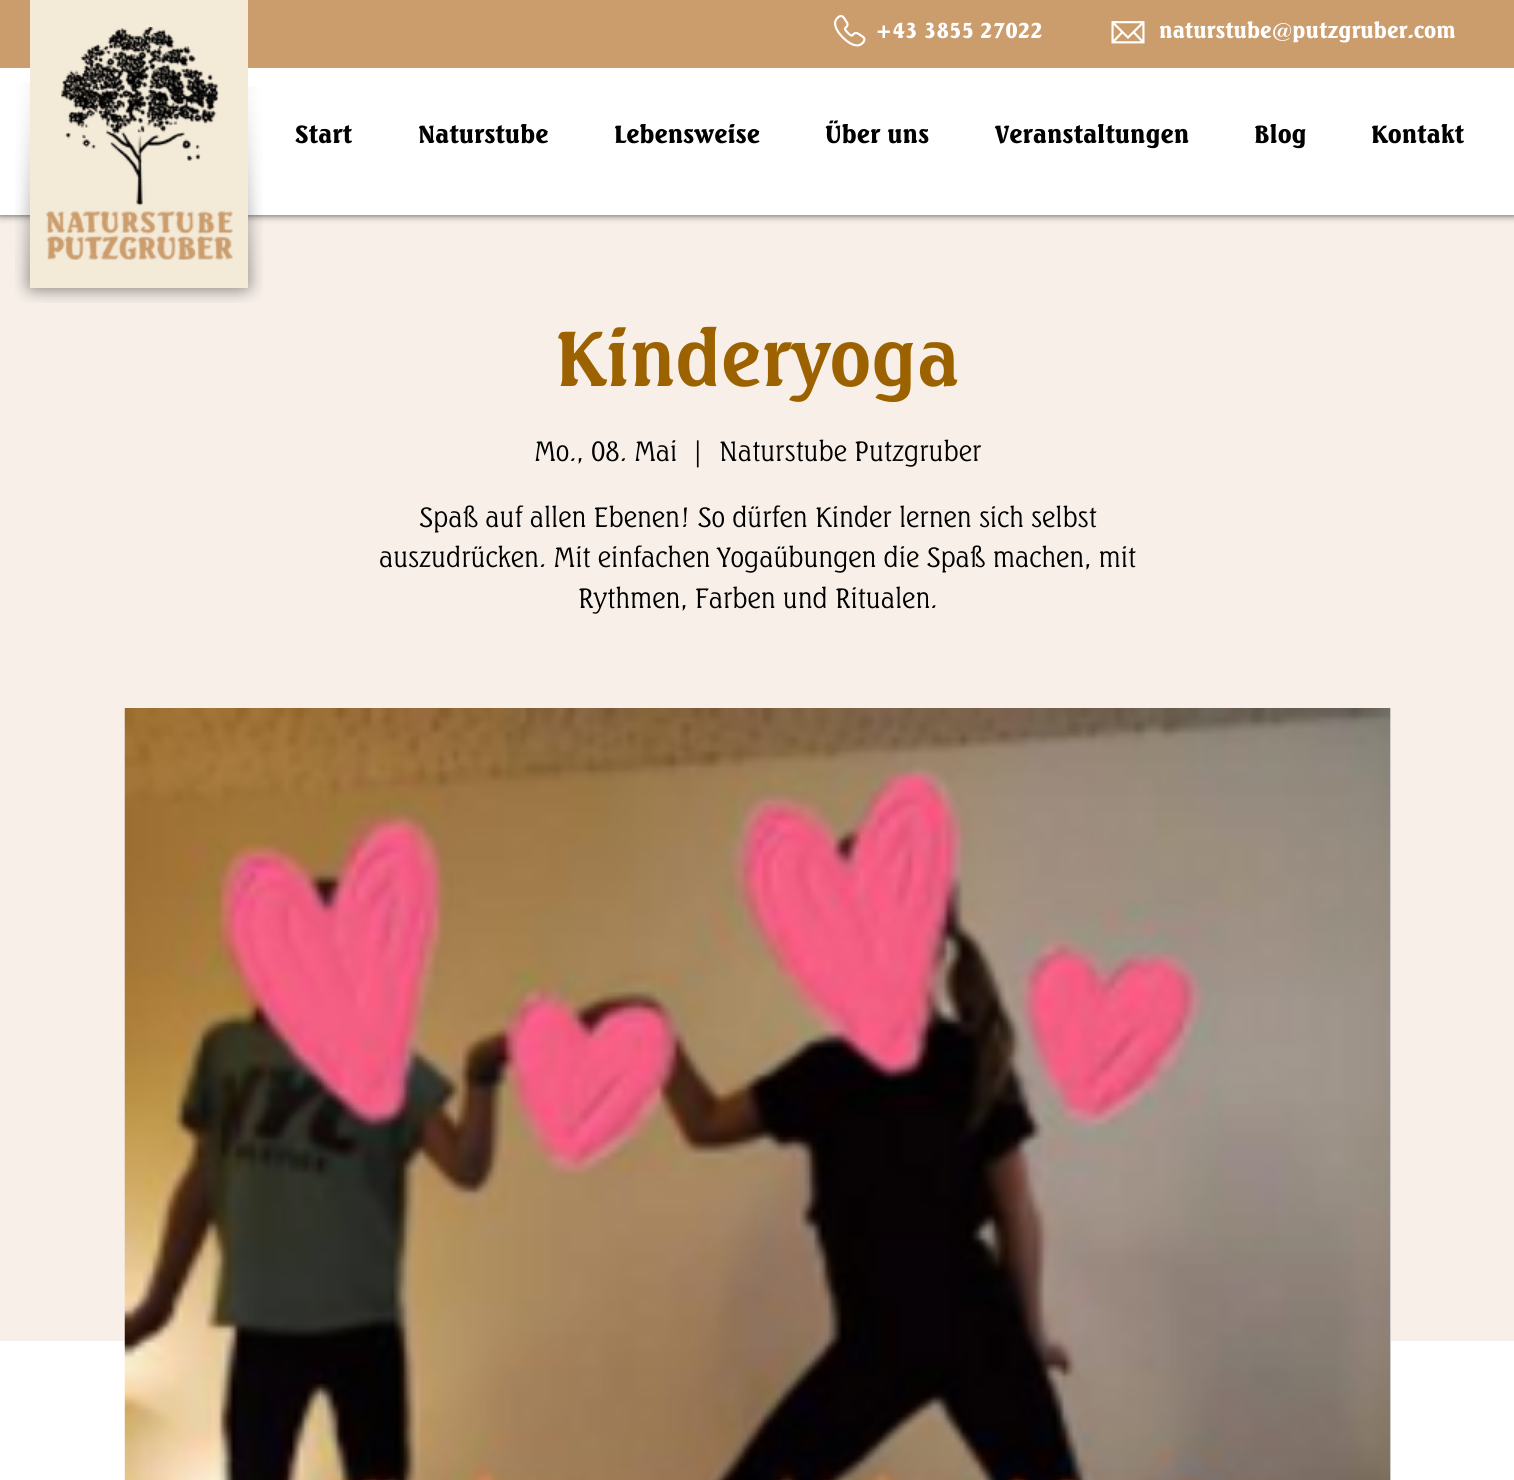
#include <cairo/cairo.h>
#include <math.h>
#include <stddef.h>

typedef struct { double x, y; const char *s; } line_t;
static cairo_t *cr;

static void rgb(unsigned color)
{
	cairo_set_source_rgb(cr, (color >> 16) / 255.0, (color >> 8 & 255) / 255.0, (color & 255) / 255.0);
}

static void rrect(double x, double y, double w, double h, double r)
{
	cairo_new_sub_path(cr);
	cairo_arc(cr, x + w - r, y + h - r, r, 0, M_PI / 2);
	cairo_arc(cr, x + r, y + h - r, r, M_PI / 2, M_PI);
	cairo_arc(cr, x + r, y + r, r, M_PI, 1.5 * M_PI);
	cairo_arc(cr, x + w - r, y + r, r, 1.5 * M_PI, 2 * M_PI);
	cairo_close_path(cr);
}

static void soft_shadow(double x, double y, double w, double h, double r, double blur, double alpha)
{
	cairo_push_group_with_content(cr, CAIRO_CONTENT_ALPHA);
	cairo_set_operator(cr, CAIRO_OPERATOR_SOURCE);
	for (int i = 15; i >= -15 && fmin(w, h) + blur * i / 3 > 0; i -= 2) {
		double e = blur * i / 6;
		cairo_set_source_rgba(cr, 0, 0, 0, alpha * erfc((i - 1) / 8.5) / 2);
		rrect(x - e, y - e, w + 2 * e, h + 2 * e, fmax(0, fmin(r + e + blur * .6, fmin(w, h) / 2 + e)));
		cairo_fill(cr);
	}
	cairo_pattern_t *soft = cairo_pop_group(cr);
	cairo_mask(cr, soft);
	cairo_pattern_destroy(soft);
}

static void image(const char *path, double x, double y, double w, double h)
{
	cairo_surface_t *image = cairo_image_surface_create_from_png(path);
	cairo_save(cr);
	cairo_set_source_surface(cr, image, x, y);
	cairo_rectangle(cr, x, y, w, h);
	cairo_fill(cr);
	cairo_restore(cr);
	cairo_surface_destroy(image);
}

int main(void) {
	cairo_surface_t *surface = cairo_image_surface_create(CAIRO_FORMAT_RGB24, 1514, 1480);
	cr = cairo_create(surface);
	cairo_font_options_t *options = cairo_font_options_create();
	cairo_font_options_set_hint_metrics(options, CAIRO_HINT_METRICS_OFF);
	cairo_font_options_set_hint_style(options, CAIRO_HINT_STYLE_NONE);
	cairo_set_font_options(cr, options);
	cairo_set_miter_limit(cr, 4);
	rgb(0xffffff);
	cairo_paint(cr);
	rgb(0xf7efe8);
	cairo_rectangle(cr, 0, 215, 1514, 1126);
	cairo_fill(cr);
	rgb(0x000000);
	soft_shadow(0, 0, 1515, 215, 0, 4, 0.7);
	rgb(0xffffff);
	cairo_rectangle(cr, 0, 68, 1514, 147);
	cairo_fill(cr);
	rgb(0xcb9c6c);
	cairo_rectangle(cr, 0, 0, 1514, 68);
	cairo_fill(cr);
	image("img/1.png", 834, 15, 32, 32);
	image("img/2.png", 1111, 21, 34, 23);
	image("img/4.png", 15, 82, 68, 221);
	image("img/6.png", 195, 86, 68, 217);
	rgb(0xf4ead8);
	cairo_rectangle(cr, 30, 0, 218, 288);
	cairo_fill(cr);
	image("img/3.png", 46, 27, 187, 233);
	image("img/5.png", 83, 288, 112, 15);
	rgb(0xe8e6e6);
	cairo_rectangle(cr, 1390, 708, 1, 772);
	cairo_fill(cr);
	image("img/7.png", 124, 708, 1267, 772);
	cairo_select_font_face(cr, "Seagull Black", CAIRO_FONT_SLANT_NORMAL, CAIRO_FONT_WEIGHT_NORMAL);
	cairo_set_font_size(cr, 21);
	rgb(0xffffff);
	cairo_move_to(cr, 875, 38);
	cairo_show_text(cr, "+43 3855 27022");
	cairo_move_to(cr, 1159, 38);
	cairo_show_text(cr, "naturstube@putzgruber.com");
	cairo_set_font_size(cr, 24);
	rgb(0x000000);
	{
		static const line_t items[] = {
			{295, 143, "Start"},
			{418, 143, "Naturstube"},
			{614, 143, "Lebensweise"},
			{825, 143, "Über uns"},
			{995, 143, "Veranstaltungen"},
			{1254, 143, "Blog"},
			{1371, 143, "Kontakt"},
		};
		for (size_t i = 0; i < sizeof items / sizeof *items; i++) {
			cairo_move_to(cr, items[i].x, items[i].y);
			cairo_show_text(cr, items[i].s);
		}
	}
	cairo_select_font_face(cr, "Seagull", CAIRO_FONT_SLANT_NORMAL, CAIRO_FONT_WEIGHT_BOLD);
	cairo_set_font_size(cr, 75);
	rgb(0x9d6200);
	cairo_move_to(cr, 555, 386);
	cairo_show_text(cr, "Kinderyoga");
	cairo_select_font_face(cr, "Seagull Light", CAIRO_FONT_SLANT_NORMAL, CAIRO_FONT_WEIGHT_NORMAL);
	cairo_set_font_size(cr, 27);
	rgb(0x000000);
	{
		static const line_t items[] = {
			{534, 461, "Mo., 08. Mai"},
			{691, 461, "|"},
			{719, 461, "Naturstube Putzgruber"},
			{419, 527, "Spaß auf allen Ebenen! So dürfen Kinder lernen sich selbst"},
			{379, 567, "auszudrücken. Mit einfachen Yogaübungen die Spaß machen, mit"},
			{578, 608, "Rythmen, Farben und Ritualen."},
		};
		for (size_t i = 0; i < sizeof items / sizeof *items; i++) {
			cairo_move_to(cr, items[i].x, items[i].y);
			cairo_show_text(cr, items[i].s);
		}
	}
	cairo_surface_write_to_png(surface, "page.png");
	cairo_font_options_destroy(options);
	cairo_destroy(cr);
	cairo_surface_destroy(surface);
	return 0;
}
